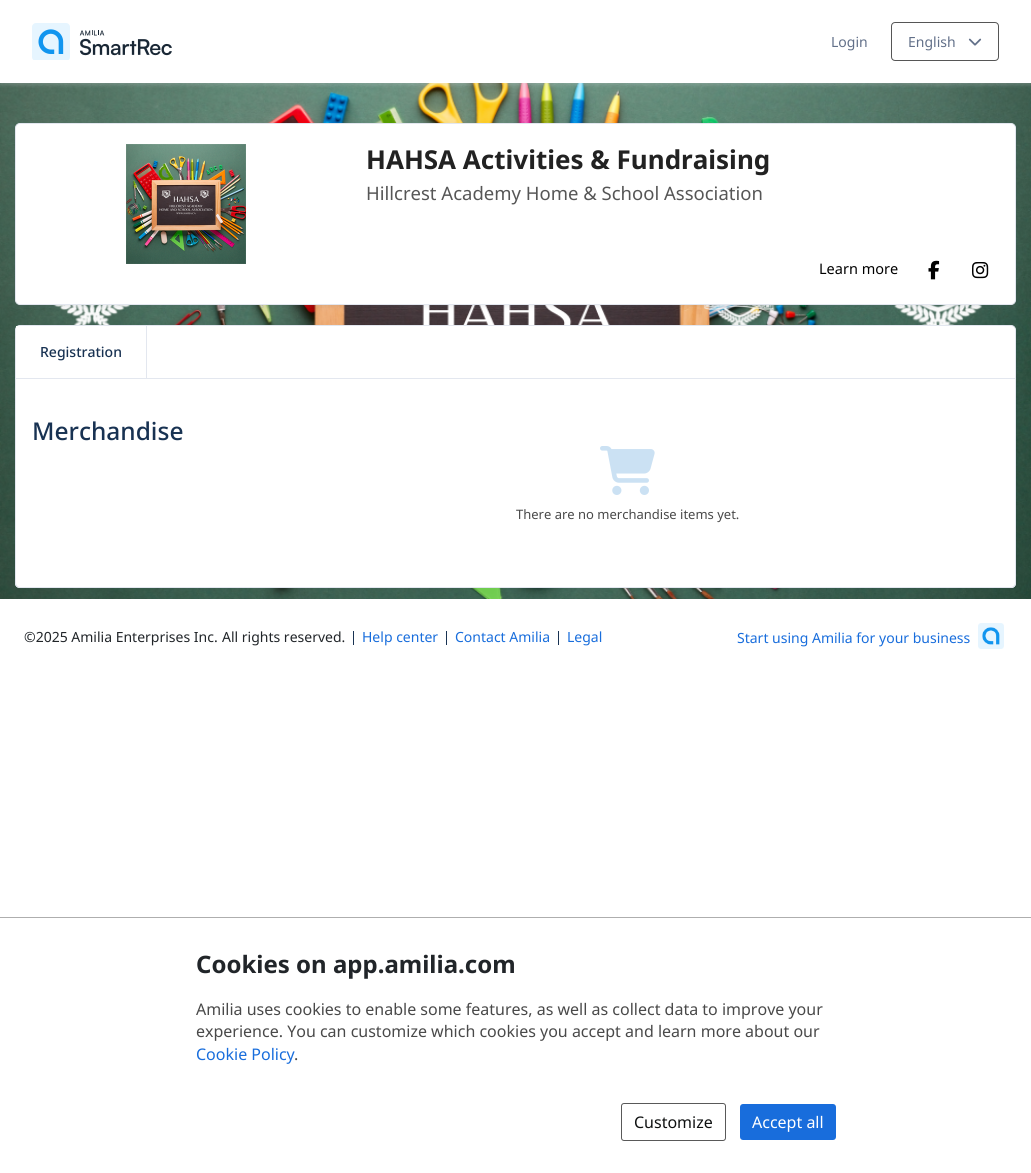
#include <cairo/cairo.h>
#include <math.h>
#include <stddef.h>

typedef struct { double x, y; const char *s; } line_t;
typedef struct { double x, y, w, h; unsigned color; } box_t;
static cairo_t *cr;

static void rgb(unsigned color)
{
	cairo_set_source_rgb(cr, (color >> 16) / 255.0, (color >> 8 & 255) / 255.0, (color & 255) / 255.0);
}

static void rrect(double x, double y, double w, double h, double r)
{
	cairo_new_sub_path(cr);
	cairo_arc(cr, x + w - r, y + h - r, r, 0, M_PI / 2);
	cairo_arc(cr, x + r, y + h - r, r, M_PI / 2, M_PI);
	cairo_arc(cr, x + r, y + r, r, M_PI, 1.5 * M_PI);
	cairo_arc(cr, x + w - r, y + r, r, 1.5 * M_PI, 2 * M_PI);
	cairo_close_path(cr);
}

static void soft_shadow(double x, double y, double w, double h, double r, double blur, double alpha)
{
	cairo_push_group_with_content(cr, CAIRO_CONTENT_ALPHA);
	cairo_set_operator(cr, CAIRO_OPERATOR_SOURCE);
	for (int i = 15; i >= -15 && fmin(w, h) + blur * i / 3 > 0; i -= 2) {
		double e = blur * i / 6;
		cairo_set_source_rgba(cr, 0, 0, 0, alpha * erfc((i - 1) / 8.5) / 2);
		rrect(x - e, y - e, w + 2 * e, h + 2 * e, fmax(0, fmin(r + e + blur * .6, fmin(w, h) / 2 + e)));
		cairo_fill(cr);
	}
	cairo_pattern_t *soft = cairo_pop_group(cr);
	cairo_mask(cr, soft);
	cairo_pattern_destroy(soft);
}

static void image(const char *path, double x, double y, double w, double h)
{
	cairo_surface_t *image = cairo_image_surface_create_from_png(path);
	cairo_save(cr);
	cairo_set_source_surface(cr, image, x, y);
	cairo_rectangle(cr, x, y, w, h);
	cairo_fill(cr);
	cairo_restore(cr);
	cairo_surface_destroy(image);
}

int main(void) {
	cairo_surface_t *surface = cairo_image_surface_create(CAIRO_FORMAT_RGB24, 1031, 1173);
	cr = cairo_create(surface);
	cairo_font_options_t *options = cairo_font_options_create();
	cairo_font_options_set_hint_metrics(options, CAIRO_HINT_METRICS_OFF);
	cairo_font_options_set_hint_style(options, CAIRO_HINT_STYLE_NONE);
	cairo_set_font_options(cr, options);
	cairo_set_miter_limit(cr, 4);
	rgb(0xffffff);
	cairo_paint(cr);
	image("img/3.png", 0, 83, 1031, 516);
	cairo_save(cr);
	cairo_rectangle(cr, 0, 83, 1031, 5);
	cairo_clip(cr);
	rgb(0xd9dbe0);
	soft_shadow(0, 2, 1031, 83, 0, 2, 0.25);
	cairo_restore(cr);
	image("img/1.png", 32, 23, 140, 37);
	rrect(891.5, 22.5, 107, 38, 3.5);
	rgb(0x565656);
	cairo_set_line_width(cr, 1);
	cairo_stroke(cr);
	image("img/2.png", 968, 38, 14, 8);
	rgb(0x5d6977);
	soft_shadow(15, 125, 1001, 182, 5, 2, 0.1);
	rgb(0xffffff);
	rrect(15.5, 123.5, 1000, 181, 4.5);
	cairo_fill_preserve(cr);
	rgb(0xe3e7ef);
	cairo_stroke(cr);
	image("img/4.png", 126, 144, 120, 120);
	image("img/5.png", 928, 260, 12, 20);
	image("img/6.png", 972, 262, 17, 17);
	rgb(0xffffff);
	cairo_new_path(cr);
	cairo_move_to(cr, 20, 325.5);
	cairo_line_to(cr, 1011, 325.5);
	cairo_curve_to(cr, 1013.5, 325.5, 1015.5, 327.5, 1015.5, 330);
	cairo_line_to(cr, 1015.5, 378.5);
	cairo_line_to(cr, 15.5, 378.5);
	cairo_line_to(cr, 15.5, 330);
	cairo_curve_to(cr, 15.5, 327.5, 17.5, 325.5, 20, 325.5);
	cairo_close_path(cr);
	cairo_fill_preserve(cr);
	rgb(0xe3e7ef);
	cairo_stroke(cr);
	cairo_rectangle(cr, 146, 326, 1, 57);
	cairo_fill(cr);
	rgb(0xffffff);
	cairo_rectangle(cr, 16, 326, 3, 3);
	cairo_fill(cr);
	cairo_new_path(cr);
	cairo_move_to(cr, 15, 379);
	cairo_line_to(cr, 1016, 379);
	cairo_line_to(cr, 1016, 583);
	cairo_curve_to(cr, 1016, 586, 1014, 588, 1011, 588);
	cairo_line_to(cr, 20, 588);
	cairo_curve_to(cr, 17, 588, 15, 586, 15, 583);
	cairo_close_path(cr);
	cairo_fill(cr);
	rgb(0xe3e7ef);
	cairo_set_fill_rule(cr, CAIRO_FILL_RULE_EVEN_ODD);
	cairo_new_path(cr);
	cairo_move_to(cr, 15, 379);
	cairo_line_to(cr, 1016, 379);
	cairo_line_to(cr, 1016, 583);
	cairo_curve_to(cr, 1016, 586, 1014, 588, 1011, 588);
	cairo_line_to(cr, 20, 588);
	cairo_curve_to(cr, 17, 588, 15, 586, 15, 583);
	cairo_close_path(cr);
	cairo_move_to(cr, 16, 379);
	cairo_line_to(cr, 1015, 379);
	cairo_line_to(cr, 1015, 583);
	cairo_curve_to(cr, 1015, 585, 1013, 587, 1011, 587);
	cairo_line_to(cr, 20, 587);
	cairo_curve_to(cr, 18, 587, 16, 585, 16, 583);
	cairo_close_path(cr);
	cairo_fill(cr);
	image("img/7.png", 600, 446, 55, 49);
	{
		static const box_t items[] = {
			{353, 631, 1, 14, 0x183252},
			{446, 631, 1, 14, 0x183252},
			{558, 631, 1, 14, 0x183252},
		};
		for (size_t i = 0; i < sizeof items / sizeof *items; i++) {
			rgb(items[i].color);
			cairo_rectangle(cr, items[i].x, items[i].y, items[i].w, items[i].h);
			cairo_fill(cr);
		}
	}
	image("img/8.png", 978, 623, 26, 26);
	rgb(0xaeaeae);
	cairo_rectangle(cr, 0, 917, 1031, 1);
	cairo_fill(cr);
	rrect(621.5, 1103.5, 104, 37, 2.5);
	rgb(0x595959);
	cairo_stroke(cr);
	rgb(0x186ddc);
	rrect(740, 1104, 96, 36, 3);
	cairo_fill(cr);
	cairo_select_font_face(cr, "Noto Sans", CAIRO_FONT_SLANT_NORMAL, CAIRO_FONT_WEIGHT_NORMAL);
	cairo_set_font_size(cr, 14);
	rgb(0x627089);
	cairo_move_to(cr, 831, 47);
	cairo_show_text(cr, "Login");
	cairo_move_to(cr, 908, 47);
	cairo_show_text(cr, "English");
	cairo_select_font_face(cr, "Noto Sans", CAIRO_FONT_SLANT_NORMAL, CAIRO_FONT_WEIGHT_BOLD);
	cairo_set_font_size(cr, 26);
	rgb(0x222222);
	cairo_move_to(cr, 366, 169);
	cairo_show_text(cr, "HAHSA Activities & Fundraising");
	cairo_select_font_face(cr, "Noto Sans", CAIRO_FONT_SLANT_NORMAL, CAIRO_FONT_WEIGHT_NORMAL);
	cairo_set_font_size(cr, 18.5);
	rgb(0x565656);
	cairo_move_to(cr, 366, 200);
	cairo_show_text(cr, "Hillcrest Academy Home & School Association");
	cairo_set_font_size(cr, 14.5);
	rgb(0x000000);
	cairo_move_to(cr, 819, 274);
	cairo_show_text(cr, "Learn more");
	cairo_select_font_face(cr, "Noto Sans Medium", CAIRO_FONT_SLANT_NORMAL, CAIRO_FONT_WEIGHT_NORMAL);
	cairo_set_font_size(cr, 14);
	rgb(0x183252);
	cairo_move_to(cr, 40, 357);
	cairo_show_text(cr, "Registration");
	cairo_set_font_size(cr, 24.5);
	cairo_move_to(cr, 32, 440);
	cairo_show_text(cr, "Merchandise");
	cairo_select_font_face(cr, "Noto Sans", CAIRO_FONT_SLANT_NORMAL, CAIRO_FONT_WEIGHT_NORMAL);
	cairo_set_font_size(cr, 13);
	rgb(0x494949);
	cairo_move_to(cr, 516, 519);
	cairo_show_text(cr, "There are no merchandise items yet.");
	cairo_set_font_size(cr, 14);
	rgb(0x212529);
	cairo_move_to(cr, 24, 642);
	cairo_show_text(cr, "©2025 Amilia Enterprises Inc.");
	cairo_move_to(cr, 222, 642);
	cairo_show_text(cr, "All rights reserved.");
	rgb(0x186ddc);
	{
		static const line_t items[] = {
			{362, 642, "Help center"},
			{455, 642, "Contact Amilia"},
			{567, 642, "Legal"},
			{737, 643, "Start using Amilia for your business"},
		};
		for (size_t i = 0; i < sizeof items / sizeof *items; i++) {
			cairo_move_to(cr, items[i].x, items[i].y);
			cairo_show_text(cr, items[i].s);
		}
	}
	cairo_select_font_face(cr, "Noto Sans", CAIRO_FONT_SLANT_NORMAL, CAIRO_FONT_WEIGHT_BOLD);
	cairo_set_font_size(cr, 24);
	rgb(0x212529);
	cairo_move_to(cr, 196, 973);
	cairo_show_text(cr, "Cookies on app.amilia.com");
	cairo_select_font_face(cr, "Noto Sans", CAIRO_FONT_SLANT_NORMAL, CAIRO_FONT_WEIGHT_NORMAL);
	cairo_set_font_size(cr, 16);
	rgb(0x494949);
	cairo_move_to(cr, 196, 1015);
	cairo_show_text(cr, "Amilia uses cookies to enable some features, as well as collect data to improve your");
	cairo_move_to(cr, 196, 1037);
	cairo_show_text(cr, "experience. You can customize which cookies you accept and learn more about our");
	rgb(0x186ddc);
	cairo_move_to(cr, 196, 1060);
	cairo_show_text(cr, "Cookie Policy");
	rgb(0x494949);
	cairo_move_to(cr, 294, 1060);
	cairo_show_text(cr, ".");
	rgb(0x0f1111);
	cairo_move_to(cr, 634, 1128);
	cairo_show_text(cr, "Customize");
	rgb(0xffffff);
	cairo_move_to(cr, 752, 1128);
	cairo_show_text(cr, "Accept all");
	cairo_surface_write_to_png(surface, "page.png");
	cairo_font_options_destroy(options);
	cairo_destroy(cr);
	cairo_surface_destroy(surface);
	return 0;
}
